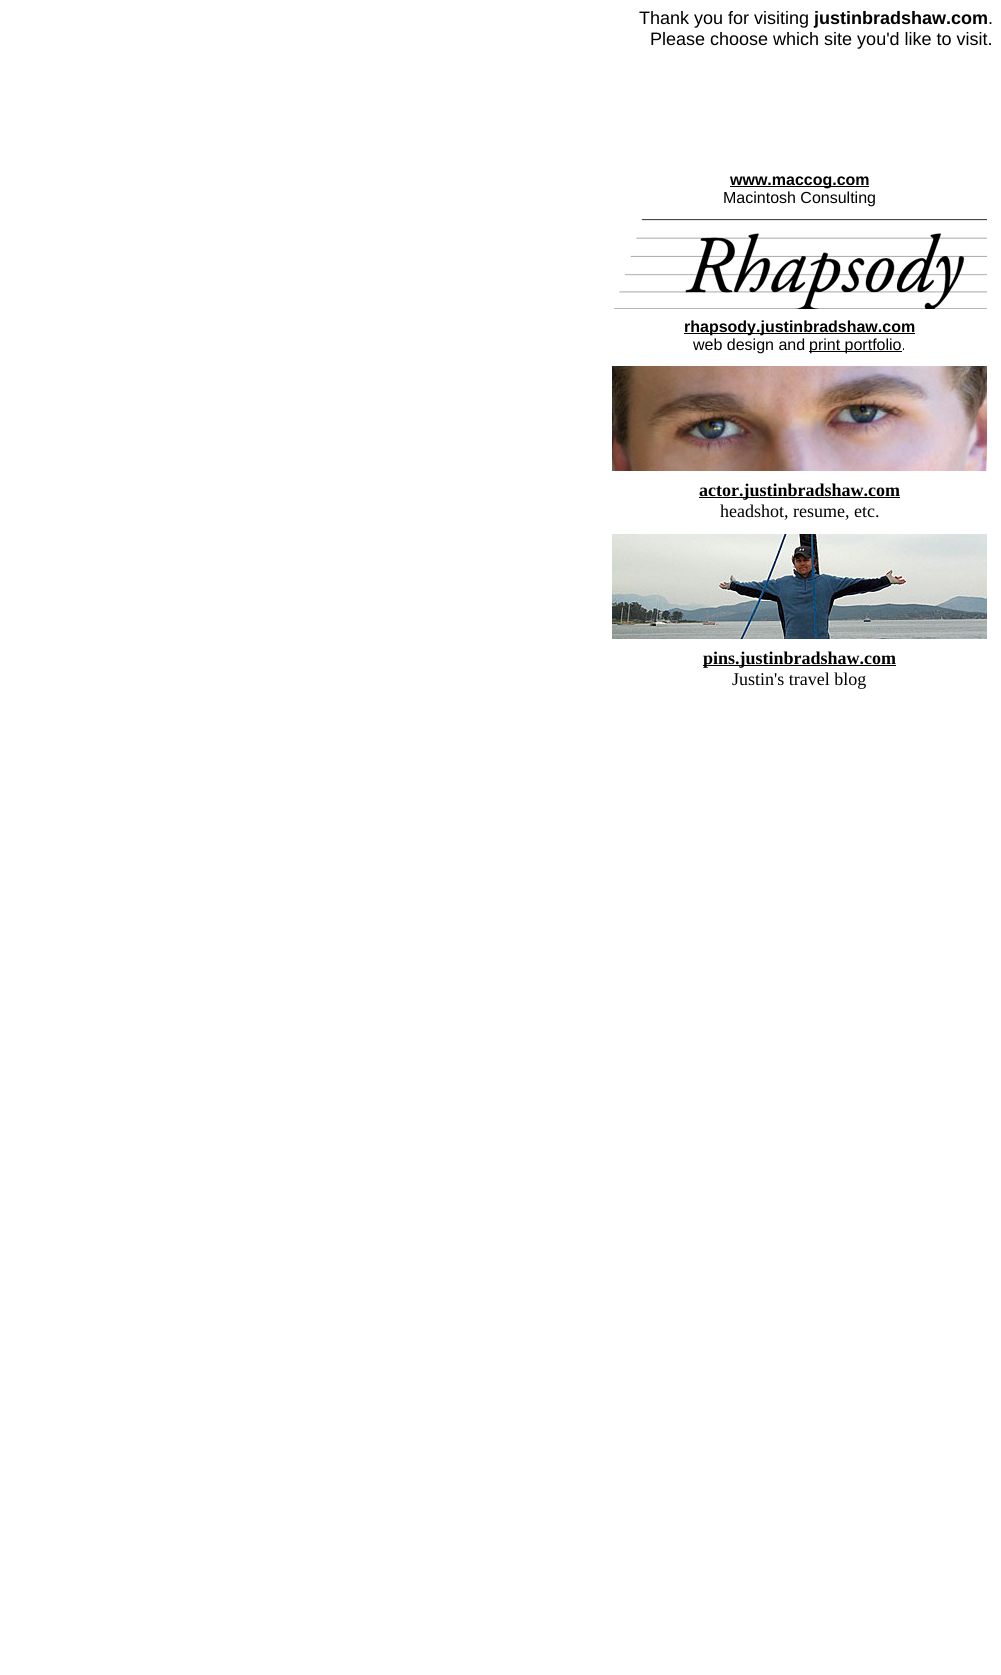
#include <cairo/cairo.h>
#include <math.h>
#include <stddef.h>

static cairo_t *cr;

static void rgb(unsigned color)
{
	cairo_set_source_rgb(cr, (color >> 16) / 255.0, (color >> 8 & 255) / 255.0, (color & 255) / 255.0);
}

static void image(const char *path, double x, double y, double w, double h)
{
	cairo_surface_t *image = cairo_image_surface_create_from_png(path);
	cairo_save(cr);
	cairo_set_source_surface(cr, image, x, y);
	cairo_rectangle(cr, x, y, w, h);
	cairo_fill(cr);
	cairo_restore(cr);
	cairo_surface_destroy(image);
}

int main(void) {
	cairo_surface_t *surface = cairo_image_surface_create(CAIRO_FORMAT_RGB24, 1001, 1675);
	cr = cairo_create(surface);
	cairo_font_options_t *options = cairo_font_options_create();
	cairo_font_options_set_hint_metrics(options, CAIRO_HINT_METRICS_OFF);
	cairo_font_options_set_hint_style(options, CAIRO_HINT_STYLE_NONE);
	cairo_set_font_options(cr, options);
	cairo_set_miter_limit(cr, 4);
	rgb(0xffffff);
	cairo_paint(cr);
	rgb(0x000000);
	cairo_rectangle(cr, 730, 186, 139, 1);
	cairo_fill(cr);
	image("img/1.png", 613, 219, 374, 90);
	cairo_rectangle(cr, 684, 333, 231, 1);
	cairo_fill(cr);
	cairo_rectangle(cr, 809, 351, 93, 1);
	cairo_fill(cr);
	image("img/2.png", 612, 366, 375, 105);
	cairo_rectangle(cr, 699, 497, 201, 1);
	cairo_fill(cr);
	image("img/3.png", 612, 534, 375, 105);
	cairo_rectangle(cr, 703, 665, 193, 1);
	cairo_fill(cr);
	cairo_select_font_face(cr, "Liberation Sans", CAIRO_FONT_SLANT_NORMAL, CAIRO_FONT_WEIGHT_NORMAL);
	cairo_set_font_size(cr, 18);
	cairo_move_to(cr, 639, 24);
	cairo_show_text(cr, "Thank you for visiting");
	cairo_select_font_face(cr, "Liberation Sans", CAIRO_FONT_SLANT_NORMAL, CAIRO_FONT_WEIGHT_BOLD);
	cairo_move_to(cr, 814, 24);
	cairo_show_text(cr, "justinbradshaw.com");
	cairo_select_font_face(cr, "Liberation Sans", CAIRO_FONT_SLANT_NORMAL, CAIRO_FONT_WEIGHT_NORMAL);
	cairo_move_to(cr, 988, 24);
	cairo_show_text(cr, ".");
	cairo_move_to(cr, 650, 45);
	cairo_show_text(cr, "Please choose which site you'd like to visit.");
	cairo_select_font_face(cr, "Liberation Sans", CAIRO_FONT_SLANT_NORMAL, CAIRO_FONT_WEIGHT_BOLD);
	cairo_set_font_size(cr, 16);
	cairo_move_to(cr, 730, 185);
	cairo_show_text(cr, "www.maccog.com");
	cairo_select_font_face(cr, "Liberation Sans", CAIRO_FONT_SLANT_NORMAL, CAIRO_FONT_WEIGHT_NORMAL);
	cairo_move_to(cr, 723, 203);
	cairo_show_text(cr, "Macintosh Consulting");
	cairo_select_font_face(cr, "Liberation Sans", CAIRO_FONT_SLANT_NORMAL, CAIRO_FONT_WEIGHT_BOLD);
	cairo_move_to(cr, 684, 332);
	cairo_show_text(cr, "rhapsody.justinbradshaw.com");
	cairo_select_font_face(cr, "Liberation Sans", CAIRO_FONT_SLANT_NORMAL, CAIRO_FONT_WEIGHT_NORMAL);
	cairo_move_to(cr, 693, 350);
	cairo_show_text(cr, "web design and");
	cairo_move_to(cr, 809, 350);
	cairo_show_text(cr, "print portfolio.");
	cairo_select_font_face(cr, "Liberation Serif", CAIRO_FONT_SLANT_NORMAL, CAIRO_FONT_WEIGHT_BOLD);
	cairo_set_font_size(cr, 18);
	cairo_move_to(cr, 699, 496);
	cairo_show_text(cr, "actor.justinbradshaw.com");
	cairo_select_font_face(cr, "Liberation Serif", CAIRO_FONT_SLANT_NORMAL, CAIRO_FONT_WEIGHT_NORMAL);
	cairo_move_to(cr, 720, 517);
	cairo_show_text(cr, "headshot, resume, etc.");
	cairo_select_font_face(cr, "Liberation Serif", CAIRO_FONT_SLANT_NORMAL, CAIRO_FONT_WEIGHT_BOLD);
	cairo_move_to(cr, 703, 664);
	cairo_show_text(cr, "pins.justinbradshaw.com");
	cairo_select_font_face(cr, "Liberation Serif", CAIRO_FONT_SLANT_NORMAL, CAIRO_FONT_WEIGHT_NORMAL);
	cairo_move_to(cr, 732, 685);
	cairo_show_text(cr, "Justin's travel blog");
	cairo_surface_write_to_png(surface, "page.png");
	cairo_font_options_destroy(options);
	cairo_destroy(cr);
	cairo_surface_destroy(surface);
	return 0;
}
